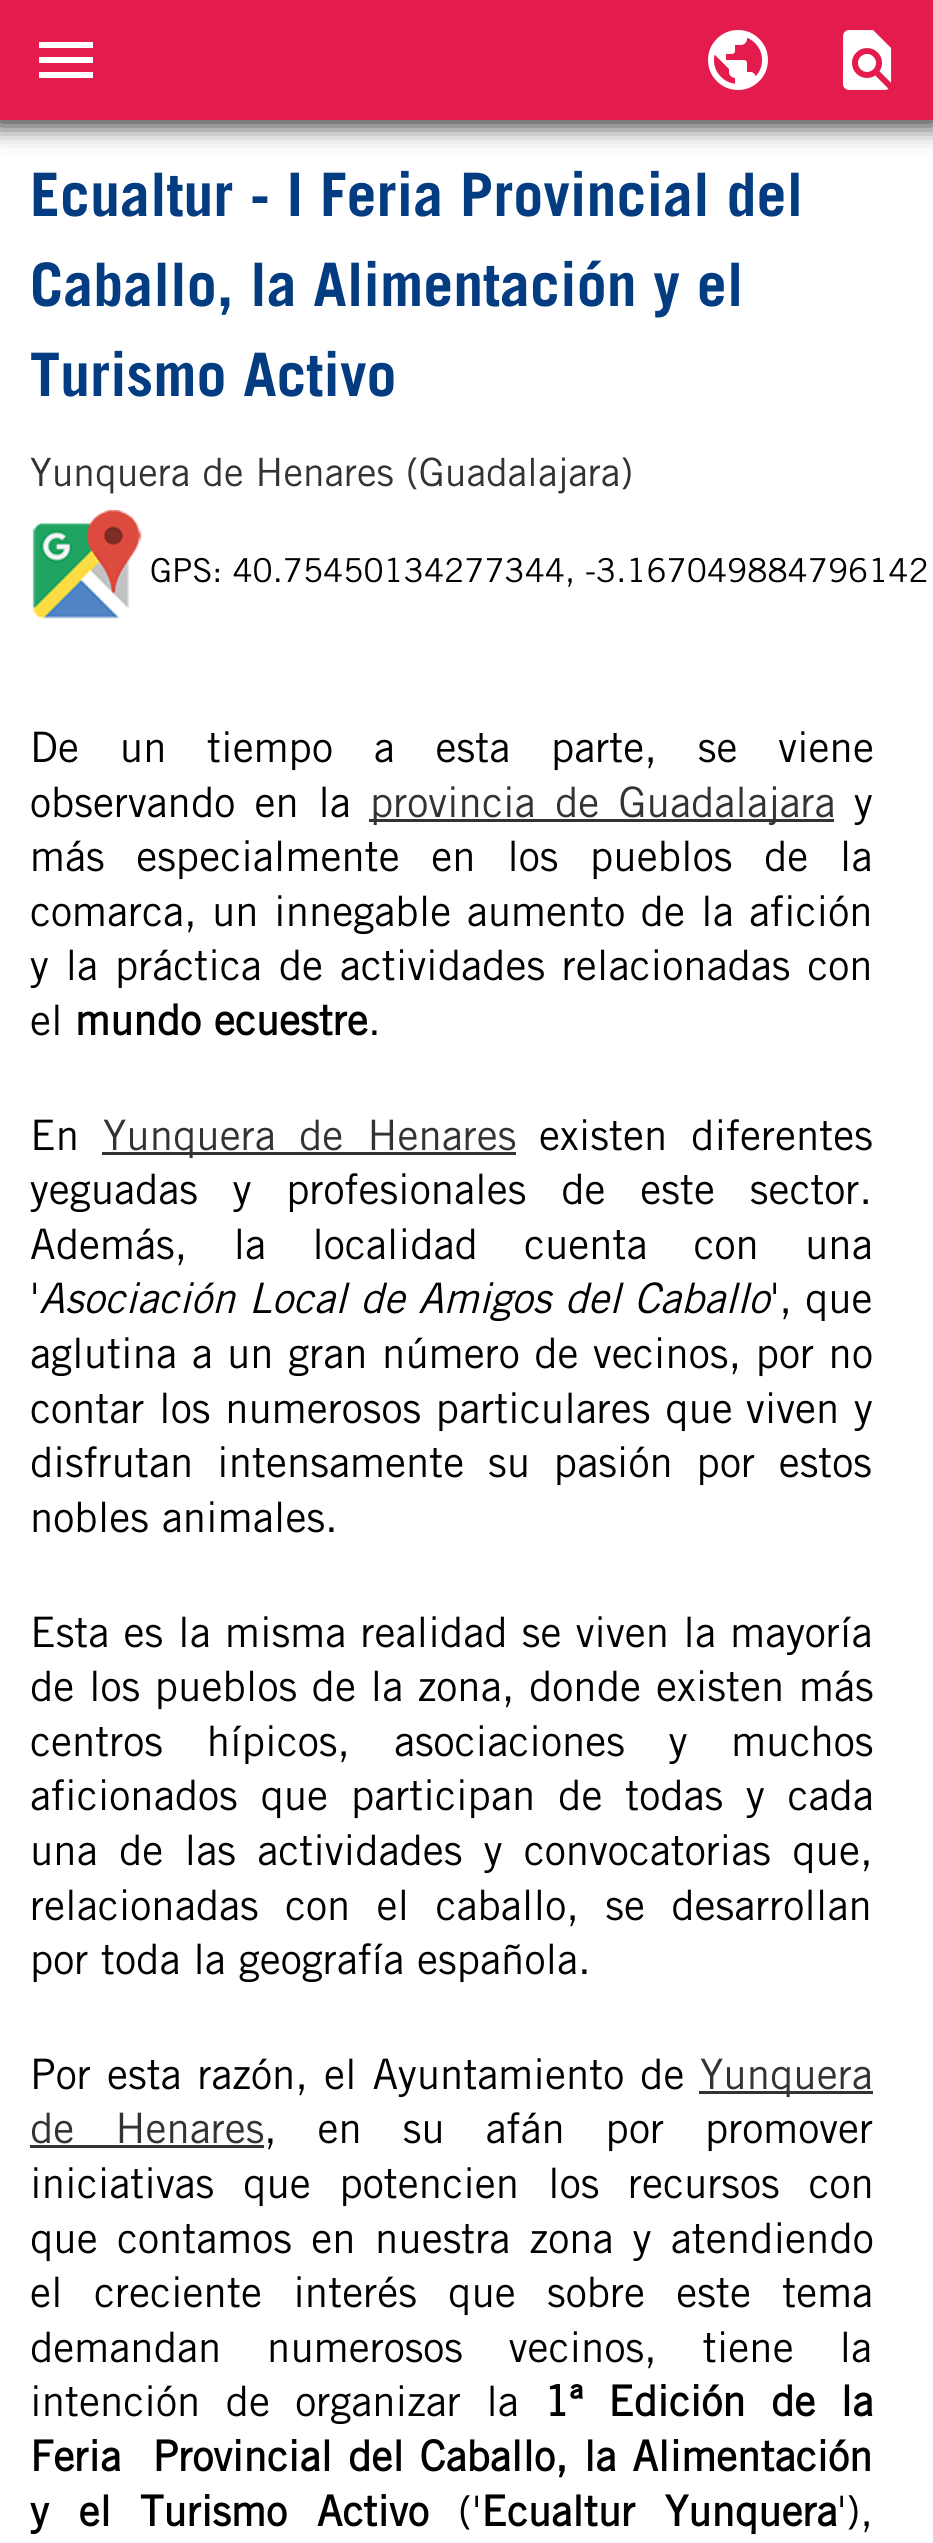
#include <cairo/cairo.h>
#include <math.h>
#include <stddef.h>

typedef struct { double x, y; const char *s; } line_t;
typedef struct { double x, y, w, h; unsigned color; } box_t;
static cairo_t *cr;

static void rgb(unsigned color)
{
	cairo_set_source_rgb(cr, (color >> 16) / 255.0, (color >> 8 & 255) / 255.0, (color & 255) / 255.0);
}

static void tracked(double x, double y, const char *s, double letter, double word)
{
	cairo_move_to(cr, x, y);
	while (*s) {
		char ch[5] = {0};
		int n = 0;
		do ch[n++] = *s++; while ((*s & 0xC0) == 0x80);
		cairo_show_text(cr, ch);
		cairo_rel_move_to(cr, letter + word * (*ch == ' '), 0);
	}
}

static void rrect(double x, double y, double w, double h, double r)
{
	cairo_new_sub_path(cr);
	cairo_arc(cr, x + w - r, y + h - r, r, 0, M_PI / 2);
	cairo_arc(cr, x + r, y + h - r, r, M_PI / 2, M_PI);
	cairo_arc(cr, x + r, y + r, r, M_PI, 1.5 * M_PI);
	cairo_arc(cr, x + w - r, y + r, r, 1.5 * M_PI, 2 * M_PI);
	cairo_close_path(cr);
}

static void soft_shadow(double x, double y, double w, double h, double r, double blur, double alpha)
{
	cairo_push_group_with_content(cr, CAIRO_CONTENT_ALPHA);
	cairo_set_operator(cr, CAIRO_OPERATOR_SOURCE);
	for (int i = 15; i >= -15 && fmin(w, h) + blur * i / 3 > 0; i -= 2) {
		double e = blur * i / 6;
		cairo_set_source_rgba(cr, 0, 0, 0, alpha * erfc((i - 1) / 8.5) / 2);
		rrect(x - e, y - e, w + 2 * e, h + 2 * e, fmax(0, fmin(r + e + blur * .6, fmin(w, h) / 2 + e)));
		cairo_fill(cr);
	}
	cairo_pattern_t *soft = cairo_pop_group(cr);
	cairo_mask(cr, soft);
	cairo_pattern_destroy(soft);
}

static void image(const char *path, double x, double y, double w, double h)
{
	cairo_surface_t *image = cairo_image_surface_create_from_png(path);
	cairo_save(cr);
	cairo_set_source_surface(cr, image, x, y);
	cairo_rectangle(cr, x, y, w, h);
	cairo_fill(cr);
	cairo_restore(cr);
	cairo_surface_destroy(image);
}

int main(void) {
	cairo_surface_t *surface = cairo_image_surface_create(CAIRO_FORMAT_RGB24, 933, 2543);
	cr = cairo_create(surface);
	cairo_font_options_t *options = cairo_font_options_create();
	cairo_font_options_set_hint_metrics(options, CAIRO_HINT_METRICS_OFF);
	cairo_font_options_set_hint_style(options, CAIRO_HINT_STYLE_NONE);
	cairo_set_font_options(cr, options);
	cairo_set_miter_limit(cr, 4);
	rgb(0xffffff);
	cairo_paint(cr);
	rgb(0x333333);
	soft_shadow(-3, 0, 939, 126, 0, 12, 1);
	rgb(0xe41c4d);
	cairo_rectangle(cr, 0, 0, 933, 120);
	cairo_fill(cr);
	rgb(0xffffff);
	cairo_new_path(cr);
	cairo_move_to(cr, 39, 42);
	cairo_line_to(cr, 93, 42);
	cairo_line_to(cr, 93, 48);
	cairo_line_to(cr, 39, 48);
	cairo_close_path(cr);
	cairo_move_to(cr, 39, 63);
	cairo_line_to(cr, 39, 57);
	cairo_line_to(cr, 93, 57);
	cairo_line_to(cr, 93, 63);
	cairo_close_path(cr);
	cairo_move_to(cr, 39, 78);
	cairo_line_to(cr, 39, 72);
	cairo_line_to(cr, 93, 72);
	cairo_line_to(cr, 93, 78);
	cairo_close_path(cr);
	cairo_fill(cr);
	image("img/1.png", 708, 30, 60, 60);
	image("img/2.png", 842, 30, 50, 60);
	image("img/3.png", 32, 510, 110, 109);
	{
		static const box_t items[] = {
			{369, 819, 465, 3, 0x333333},
			{102, 1152, 414, 3, 0x333333},
			{699, 2091, 174, 3, 0x333333},
			{30, 2145, 234, 3, 0x333333},
		};
		for (size_t i = 0; i < sizeof items / sizeof *items; i++) {
			rgb(items[i].color);
			cairo_rectangle(cr, items[i].x, items[i].y, items[i].w, items[i].h);
			cairo_fill(cr);
		}
	}
	cairo_select_font_face(cr, "Trade Gothic", CAIRO_FONT_SLANT_NORMAL, CAIRO_FONT_WEIGHT_BOLD);
	cairo_set_font_size(cr, 60);
	rgb(0x033c80);
	{
		static const line_t items[] = {
			{30, 216, "Ecualtur - I Feria Provincial del"},
			{30, 306, "Caballo, la Alimentación y el"},
			{30, 396, "Turismo Activo"},
		};
		for (size_t i = 0; i < sizeof items / sizeof *items; i++) {
			cairo_move_to(cr, items[i].x, items[i].y);
			cairo_show_text(cr, items[i].s);
		}
	}
	cairo_select_font_face(cr, "Trade Gothic", CAIRO_FONT_SLANT_NORMAL, CAIRO_FONT_WEIGHT_NORMAL);
	cairo_set_font_size(cr, 39);
	rgb(0x333333);
	cairo_move_to(cr, 30, 486);
	cairo_show_text(cr, "Yunquera de Henares (Guadalajara)");
	cairo_set_font_size(cr, 33);
	rgb(0x000000);
	cairo_move_to(cr, 150, 582);
	cairo_show_text(cr, "GPS: 40.75450134277344, -3.167049884796142");
	cairo_set_font_size(cr, 42);
	tracked(30, 762, "De un", 0, 28);
	tracked(207, 762, "tiempo a esta parte, se viene", 0, 28);
	tracked(30, 817, "observando en la", 0, 6.5);
	rgb(0x333333);
	tracked(370, 817, "provincia de Guadalajara", 0, 6.5);
	rgb(0x000000);
	cairo_move_to(cr, 854, 817);
	cairo_show_text(cr, "y");
	tracked(30, 871, "más especialmente en los pueblos de la", 0, 18.75);
	tracked(30, 926, "comarca, un innegable aumento de", 0, 2.5);
	tracked(701, 926, "la afición", 0, 2.5);
	tracked(30, 980, "y la práctica de actividades relacionadas con", 0, 4);
	cairo_move_to(cr, 30, 1035);
	cairo_show_text(cr, "el");
	cairo_select_font_face(cr, "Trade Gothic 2", CAIRO_FONT_SLANT_NORMAL, CAIRO_FONT_WEIGHT_BOLD);
	cairo_move_to(cr, 75, 1035);
	cairo_show_text(cr, "mundo ecuestre");
	cairo_select_font_face(cr, "Trade Gothic", CAIRO_FONT_SLANT_NORMAL, CAIRO_FONT_WEIGHT_NORMAL);
	cairo_move_to(cr, 368, 1035);
	cairo_show_text(cr, ".");
	cairo_move_to(cr, 30, 1150);
	cairo_show_text(cr, "En");
	rgb(0x333333);
	cairo_move_to(cr, 103, 1150);
	cairo_show_text(cr, "Yunquera");
	tracked(299, 1150, "de Henares", 0, 11);
	rgb(0x000000);
	tracked(539, 1150, "existen diferentes", 0, 11);
	tracked(30, 1204, "yeguadas y profesionales de este sector.", 0, 22);
	tracked(30, 1259, "Además, la localidad cuenta con una", 0, 33.25);
	cairo_move_to(cr, 30, 1313);
	cairo_show_text(cr, "'");
	cairo_select_font_face(cr, "Trade Gothic", CAIRO_FONT_SLANT_ITALIC, CAIRO_FONT_WEIGHT_NORMAL);
	tracked(39, 1313, "Asociación Local de Amigos del Caballo", 0, 0.75);
	cairo_select_font_face(cr, "Trade Gothic", CAIRO_FONT_SLANT_NORMAL, CAIRO_FONT_WEIGHT_NORMAL);
	cairo_move_to(cr, 770, 1313);
	cairo_show_text(cr, "', que");
	tracked(30, 1368, "aglutina a", 0, 2);
	tracked(227, 1368, "un gran número de vecinos, por no", 0, 1.75);
	tracked(30, 1423, "contar los numerosos particulares que", 0, 2);
	tracked(746, 1423, "viven y", 0, 2);
	tracked(30, 1477, "disfrutan intensamente su pasión por estos", 0, 11);
	cairo_move_to(cr, 30, 1532);
	cairo_show_text(cr, "nobles animales.");
	tracked(30, 1647, "Esta es", 0, 1.5);
	tracked(178, 1647, "la misma realidad se viven la mayoría", 0, 1.5);
	tracked(30, 1701, "de los pueblos de la zona, donde", 0, 1.75);
	tracked(656, 1701, "existen más", 0, 2);
	tracked(30, 1756, "centros hípicos, asociaciones y muchos", 0, 31);
	tracked(30, 1810, "aficionados que", 0, 10);
	tracked(351, 1810, "participan de todas y cada", 0, 10);
	tracked(30, 1865, "una de las actividades y convocatorias que,", 0, 8.5);
	tracked(30, 1920, "relacionadas con el caballo, se desarrollan", 0, 13.5);
	cairo_move_to(cr, 30, 1974);
	cairo_show_text(cr, "por toda la geografía española.");
	cairo_move_to(cr, 30, 2089);
	cairo_show_text(cr, "Por");
	tracked(107, 2089, "esta razón, el Ayuntamiento de", 0, 3);
	rgb(0x333333);
	cairo_move_to(cr, 700, 2089);
	cairo_show_text(cr, "Yunquera");
	tracked(30, 2143, "de Henares", 0, 28);
	rgb(0x000000);
	tracked(264, 2143, ", en su afán por", 0, 28);
	cairo_move_to(cr, 705, 2143);
	cairo_show_text(cr, "promover");
	tracked(30, 2198, "iniciativas que potencien los recursos con", 0, 16);
	tracked(30, 2253, "que contamos en", 0, 6.5);
	tracked(375, 2253, "nuestra zona y atendiendo", 0, 6.5);
	tracked(30, 2307, "el creciente interés que sobre este tema", 0, 18.5);
	tracked(30, 2362, "demandan numerosos vecinos, tiene la", 0, 33);
	tracked(30, 2416, "intención de organizar la", 0, 12.5);
	cairo_select_font_face(cr, "Trade Gothic 2", CAIRO_FONT_SLANT_NORMAL, CAIRO_FONT_WEIGHT_BOLD);
	cairo_move_to(cr, 544, 2416);
	cairo_show_text(cr, "1ª");
	tracked(608, 2416, "Edición de la", 0, 12.5);
	tracked(30, 2471, "Feria  Provincial del Caballo, la Alimentación", 0, 3);
	tracked(30, 2526, "y el", 0, 17);
	tracked(140, 2526, "Turismo Activo", 0, 17);
	cairo_select_font_face(cr, "Trade Gothic", CAIRO_FONT_SLANT_NORMAL, CAIRO_FONT_WEIGHT_NORMAL);
	cairo_move_to(cr, 458, 2526);
	cairo_show_text(cr, "('");
	cairo_select_font_face(cr, "Trade Gothic 2", CAIRO_FONT_SLANT_NORMAL, CAIRO_FONT_WEIGHT_BOLD);
	tracked(481, 2526, "Ecualtur Yunquera", 0, 17);
	cairo_select_font_face(cr, "Trade Gothic", CAIRO_FONT_SLANT_NORMAL, CAIRO_FONT_WEIGHT_NORMAL);
	cairo_move_to(cr, 837, 2526);
	cairo_show_text(cr, "'),");
	cairo_surface_write_to_png(surface, "page.png");
	cairo_font_options_destroy(options);
	cairo_destroy(cr);
	cairo_surface_destroy(surface);
	return 0;
}
